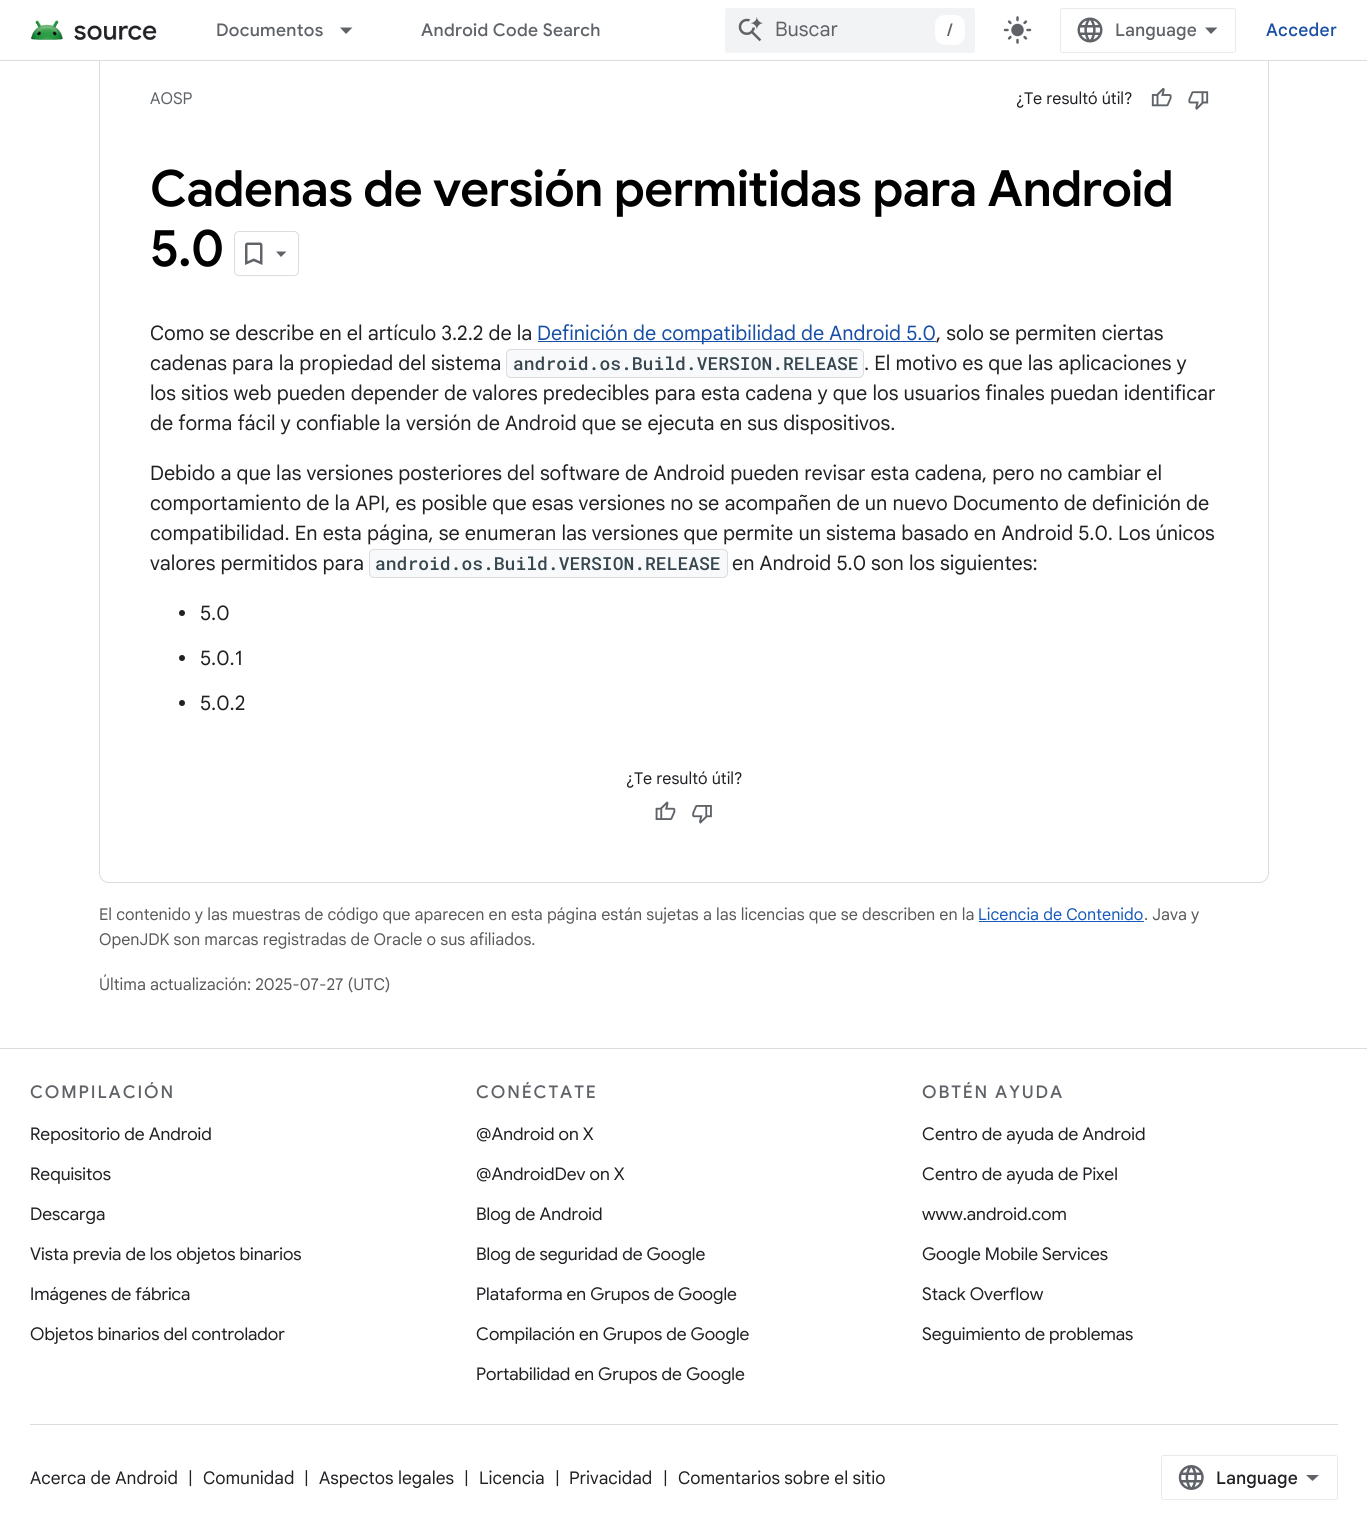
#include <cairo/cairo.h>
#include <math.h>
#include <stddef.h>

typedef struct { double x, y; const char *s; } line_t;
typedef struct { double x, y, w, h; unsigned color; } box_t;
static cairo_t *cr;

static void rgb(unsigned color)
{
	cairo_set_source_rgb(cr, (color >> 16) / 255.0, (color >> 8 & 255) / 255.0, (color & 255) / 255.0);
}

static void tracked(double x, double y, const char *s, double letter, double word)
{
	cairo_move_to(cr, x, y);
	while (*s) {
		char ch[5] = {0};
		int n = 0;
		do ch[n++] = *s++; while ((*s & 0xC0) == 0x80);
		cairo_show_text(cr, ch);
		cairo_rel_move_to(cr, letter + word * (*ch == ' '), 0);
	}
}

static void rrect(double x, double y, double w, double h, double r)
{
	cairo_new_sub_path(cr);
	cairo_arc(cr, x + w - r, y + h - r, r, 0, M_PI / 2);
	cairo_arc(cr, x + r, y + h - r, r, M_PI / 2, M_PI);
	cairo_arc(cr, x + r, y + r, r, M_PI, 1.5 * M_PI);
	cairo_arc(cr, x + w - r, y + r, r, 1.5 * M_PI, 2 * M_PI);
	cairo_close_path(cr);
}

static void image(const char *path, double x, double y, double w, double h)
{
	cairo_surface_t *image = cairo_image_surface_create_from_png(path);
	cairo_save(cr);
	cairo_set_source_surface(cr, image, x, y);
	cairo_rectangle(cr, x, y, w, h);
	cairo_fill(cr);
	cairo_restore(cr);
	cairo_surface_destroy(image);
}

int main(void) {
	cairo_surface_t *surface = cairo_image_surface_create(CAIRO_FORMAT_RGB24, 1367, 1530);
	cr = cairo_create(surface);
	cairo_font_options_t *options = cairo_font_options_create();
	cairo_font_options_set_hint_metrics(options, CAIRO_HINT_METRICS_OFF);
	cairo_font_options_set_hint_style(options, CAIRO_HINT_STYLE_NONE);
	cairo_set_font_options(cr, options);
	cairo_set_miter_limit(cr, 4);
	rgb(0xffffff);
	cairo_paint(cr);
	rrect(99.5, -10.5, 1169, 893, 9.5);
	rgb(0xdadce0);
	cairo_set_line_width(cr, 1);
	cairo_stroke(cr);
	rgb(0xffffff);
	cairo_rectangle(cr, 99, 0, 1170, 60);
	cairo_fill(cr);
	rgb(0xdadce0);
	cairo_rectangle(cr, 0, 60, 1367, 1);
	cairo_fill(cr);
	image("img/1.png", 30, 20, 127, 20);
	rgb(0x5f6368);
	cairo_new_path(cr);
	cairo_move_to(cr, 340, 27.5);
	cairo_line_to(cr, 352.5, 27.5);
	cairo_line_to(cr, 346, 34);
	cairo_close_path(cr);
	cairo_fill(cr);
	rgb(0xf1f3f4);
	rrect(725, 8, 250, 45, 2.5);
	cairo_fill(cr);
	image("img/2.png", 738, 16, 26, 26);
	rgb(0xffffff);
	rrect(935, 15, 30, 30, 10);
	cairo_fill(cr);
	image("img/3.png", 1003, 16, 29, 28);
	rrect(1060.5, 8.5, 175, 44, 2);
	rgb(0xe8eaed);
	cairo_stroke(cr);
	image("img/4.png", 1077, 17, 26, 26);
	rgb(0x5f6368);
	cairo_new_path(cr);
	cairo_move_to(cr, 1211, 34);
	cairo_line_to(cr, 1205, 27.5);
	cairo_line_to(cr, 1217.5, 27.5);
	cairo_close_path(cr);
	cairo_fill(cr);
	image("img/5.png", 1151, 88, 21, 19);
	image("img/6.png", 1188, 91, 21, 19);
	rrect(234.5, 231.5, 64, 44, 4.5);
	rgb(0xdadce0);
	cairo_stroke(cr);
	image("img/7.png", 245, 242, 18, 23);
	rgb(0x5f6368);
	cairo_new_path(cr);
	cairo_move_to(cr, 276, 251.5);
	cairo_line_to(cr, 286.5, 251.5);
	cairo_line_to(cr, 281, 257);
	cairo_close_path(cr);
	cairo_fill(cr);
	rgb(0x174ea6);
	cairo_rectangle(cr, 538, 341, 398, 1);
	cairo_fill(cr);
	rgb(0xf8f9fa);
	rrect(506.5, 349.5, 357, 28, 4.5);
	cairo_fill_preserve(cr);
	rgb(0xdadce0);
	cairo_stroke(cr);
	rgb(0xf8f9fa);
	rrect(369.5, 549.5, 358, 28, 4.5);
	cairo_fill_preserve(cr);
	rgb(0xdadce0);
	cairo_stroke(cr);
	rgb(0x202124);
	cairo_arc(cr, 182, 613, 3, 0, 2 * M_PI);
	cairo_fill(cr);
	cairo_arc(cr, 182, 658, 3, 0, 2 * M_PI);
	cairo_fill(cr);
	cairo_arc(cr, 182, 703, 3, 0, 2 * M_PI);
	cairo_fill(cr);
	image("img/8.png", 655, 801, 21, 19);
	image("img/9.png", 692, 805, 20, 19);
	{
		static const box_t items[] = {
			{979, 921, 165, 1, 0x185abc},
			{0, 1048, 1367, 1, 0xdadce0},
			{30, 1424, 1308, 1, 0xdadce0},
		};
		for (size_t i = 0; i < sizeof items / sizeof *items; i++) {
			rgb(items[i].color);
			cairo_rectangle(cr, items[i].x, items[i].y, items[i].w, items[i].h);
			cairo_fill(cr);
		}
	}
	rrect(1161.5, 1455.5, 176, 44, 2);
	rgb(0xe8eaed);
	cairo_stroke(cr);
	image("img/10.png", 1178, 1465, 26, 25);
	rgb(0x5f6368);
	cairo_new_path(cr);
	cairo_move_to(cr, 1312.5, 1481);
	cairo_line_to(cr, 1306, 1475);
	cairo_line_to(cr, 1319, 1475);
	cairo_close_path(cr);
	cairo_fill(cr);
	cairo_select_font_face(cr, "Google Sans Medium", CAIRO_FONT_SLANT_NORMAL, CAIRO_FONT_WEIGHT_NORMAL);
	cairo_set_font_size(cr, 17.5);
	tracked(216, 36, "Documentos", 0.3, 0);
	tracked(421, 36, "Android Code Search", 0.3, 0);
	cairo_select_font_face(cr, "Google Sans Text", CAIRO_FONT_SLANT_NORMAL, CAIRO_FONT_WEIGHT_NORMAL);
	cairo_set_font_size(cr, 20);
	cairo_move_to(cr, 775, 36);
	cairo_show_text(cr, "Buscar");
	cairo_select_font_face(cr, "Google Sans Medium", CAIRO_FONT_SLANT_NORMAL, CAIRO_FONT_WEIGHT_NORMAL);
	cairo_set_font_size(cr, 17.5);
	cairo_move_to(cr, 947, 36);
	cairo_show_text(cr, "/");
	cairo_select_font_face(cr, "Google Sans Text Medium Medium", CAIRO_FONT_SLANT_NORMAL, CAIRO_FONT_WEIGHT_NORMAL);
	cairo_move_to(cr, 1115, 36);
	cairo_show_text(cr, "Language");
	rgb(0x174ea6);
	tracked(1266, 36, "Acceder", 0.3, 0);
	cairo_select_font_face(cr, "Google Sans Text", CAIRO_FONT_SLANT_NORMAL, CAIRO_FONT_WEIGHT_NORMAL);
	cairo_set_font_size(cr, 16.25);
	rgb(0x5f6368);
	cairo_move_to(cr, 150, 104);
	cairo_show_text(cr, "AOSP");
	rgb(0x202124);
	cairo_move_to(cr, 1016, 104);
	cairo_show_text(cr, "¿Te resultó útil?");
	cairo_select_font_face(cr, "Google Sans SemiBold", CAIRO_FONT_SLANT_NORMAL, CAIRO_FONT_WEIGHT_NORMAL);
	cairo_set_font_size(cr, 50);
	rgb(0x000000);
	tracked(150, 206, "Cadenas de versión permitidas para Android", -0.6, 0);
	tracked(150, 266, "5.0", -0.6, 0);
	cairo_select_font_face(cr, "Google Sans Text", CAIRO_FONT_SLANT_NORMAL, CAIRO_FONT_WEIGHT_NORMAL);
	cairo_set_font_size(cr, 20);
	rgb(0x202124);
	cairo_move_to(cr, 150, 340);
	cairo_show_text(cr, "Como se describe en el artículo 3.2.2 de la");
	rgb(0x174ea6);
	cairo_move_to(cr, 537, 340);
	cairo_show_text(cr, "Definición de compatibilidad de Android 5.0");
	rgb(0x202124);
	cairo_move_to(cr, 936, 340);
	cairo_show_text(cr, ", solo se permiten ciertas");
	cairo_move_to(cr, 150, 370);
	cairo_show_text(cr, "cadenas para la propiedad del sistema");
	cairo_select_font_face(cr, "Roboto Mono Medium", CAIRO_FONT_SLANT_NORMAL, CAIRO_FONT_WEIGHT_NORMAL);
	cairo_set_font_size(cr, 18);
	rgb(0x37474f);
	cairo_move_to(cr, 513, 370);
	cairo_show_text(cr, "android.os.Build.VERSION.RELEASE");
	cairo_select_font_face(cr, "Google Sans Text", CAIRO_FONT_SLANT_NORMAL, CAIRO_FONT_WEIGHT_NORMAL);
	cairo_set_font_size(cr, 20);
	rgb(0x202124);
	{
		static const line_t items[] = {
			{864, 370, ". El motivo es que las aplicaciones y"},
			{150, 400, "los sitios web pueden depender de valores predecibles para esta cadena y que los usuarios finales puedan identificar"},
			{150, 430, "de forma fácil y confiable la versión de Android que se ejecuta en sus dispositivos."},
			{150, 480, "Debido a que las versiones posteriores del software de Android pueden revisar esta cadena, pero no cambiar el"},
			{150, 510, "comportamiento de la API, es posible que esas versiones no se acompañen de un nuevo Documento de definición de"},
			{150, 540, "compatibilidad. En esta página, se enumeran las versiones que permite un sistema basado en Android 5.0. Los únicos"},
			{150, 570, "valores permitidos para"},
		};
		for (size_t i = 0; i < sizeof items / sizeof *items; i++) {
			cairo_move_to(cr, items[i].x, items[i].y);
			cairo_show_text(cr, items[i].s);
		}
	}
	cairo_select_font_face(cr, "Roboto Mono Medium", CAIRO_FONT_SLANT_NORMAL, CAIRO_FONT_WEIGHT_NORMAL);
	cairo_set_font_size(cr, 18);
	rgb(0x37474f);
	cairo_move_to(cr, 375, 570);
	cairo_show_text(cr, "android.os.Build.VERSION.RELEASE");
	cairo_select_font_face(cr, "Google Sans Text", CAIRO_FONT_SLANT_NORMAL, CAIRO_FONT_WEIGHT_NORMAL);
	cairo_set_font_size(cr, 20);
	rgb(0x202124);
	{
		static const line_t items[] = {
			{732, 570, "en Android 5.0 son los siguientes:"},
			{200, 620, "5.0"},
			{200, 665, "5.0.1"},
			{200, 710, "5.0.2"},
		};
		for (size_t i = 0; i < sizeof items / sizeof *items; i++) {
			cairo_move_to(cr, items[i].x, items[i].y);
			cairo_show_text(cr, items[i].s);
		}
	}
	cairo_set_font_size(cr, 16.25);
	cairo_move_to(cr, 626, 784);
	cairo_show_text(cr, "¿Te resultó útil?");
	rgb(0x595959);
	cairo_move_to(cr, 99, 920);
	cairo_show_text(cr, "El contenido y las muestras de código que aparecen en esta página están sujetas a las licencias que se describen en la");
	rgb(0x185abc);
	cairo_move_to(cr, 978, 920);
	cairo_show_text(cr, "Licencia de Contenido");
	rgb(0x595959);
	{
		static const line_t items[] = {
			{1144, 920, ". Java y"},
			{99, 945, "OpenJDK son marcas registradas de Oracle o sus afiliados."},
			{99, 990, "Última actualización: 2025-07-27 (UTC)"},
		};
		for (size_t i = 0; i < sizeof items / sizeof *items; i++) {
			cairo_move_to(cr, items[i].x, items[i].y);
			cairo_show_text(cr, items[i].s);
		}
	}
	cairo_select_font_face(cr, "Google Sans Medium", CAIRO_FONT_SLANT_NORMAL, CAIRO_FONT_WEIGHT_NORMAL);
	cairo_set_font_size(cr, 17.5);
	rgb(0x5f6368);
	tracked(30, 1098, "COMPILACIÓN", 1.9, 0);
	cairo_select_font_face(cr, "Google Sans", CAIRO_FONT_SLANT_NORMAL, CAIRO_FONT_WEIGHT_NORMAL);
	rgb(0x202124);
	{
		static const line_t items[] = {
			{30, 1140, "Repositorio de Android"},
			{30, 1180, "Requisitos"},
			{30, 1220, "Descarga"},
			{30, 1260, "Vista previa de los objetos binarios"},
			{30, 1300, "Imágenes de fábrica"},
			{30, 1340, "Objetos binarios del controlador"},
		};
		for (size_t i = 0; i < sizeof items / sizeof *items; i++) {
			cairo_move_to(cr, items[i].x, items[i].y);
			cairo_show_text(cr, items[i].s);
		}
	}
	cairo_select_font_face(cr, "Google Sans Medium", CAIRO_FONT_SLANT_NORMAL, CAIRO_FONT_WEIGHT_NORMAL);
	rgb(0x5f6368);
	tracked(476, 1098, "CONÉCTATE", 1.9, 0);
	cairo_select_font_face(cr, "Google Sans", CAIRO_FONT_SLANT_NORMAL, CAIRO_FONT_WEIGHT_NORMAL);
	rgb(0x202124);
	{
		static const line_t items[] = {
			{476, 1140, "@Android on X"},
			{476, 1180, "@AndroidDev on X"},
			{476, 1220, "Blog de Android"},
			{476, 1260, "Blog de seguridad de Google"},
			{476, 1300, "Plataforma en Grupos de Google"},
			{476, 1340, "Compilación en Grupos de Google"},
			{476, 1380, "Portabilidad en Grupos de Google"},
		};
		for (size_t i = 0; i < sizeof items / sizeof *items; i++) {
			cairo_move_to(cr, items[i].x, items[i].y);
			cairo_show_text(cr, items[i].s);
		}
	}
	cairo_select_font_face(cr, "Google Sans Medium", CAIRO_FONT_SLANT_NORMAL, CAIRO_FONT_WEIGHT_NORMAL);
	rgb(0x5f6368);
	tracked(922, 1098, "OBTÉN AYUDA", 1.9, 0);
	cairo_select_font_face(cr, "Google Sans", CAIRO_FONT_SLANT_NORMAL, CAIRO_FONT_WEIGHT_NORMAL);
	rgb(0x202124);
	{
		static const line_t items[] = {
			{922, 1140, "Centro de ayuda de Android"},
			{922, 1180, "Centro de ayuda de Pixel"},
			{922, 1220, "www.android.com"},
			{922, 1260, "Google Mobile Services"},
			{922, 1300, "Stack Overflow"},
			{922, 1340, "Seguimiento de problemas"},
		};
		for (size_t i = 0; i < sizeof items / sizeof *items; i++) {
			cairo_move_to(cr, items[i].x, items[i].y);
			cairo_show_text(cr, items[i].s);
		}
	}
	cairo_select_font_face(cr, "Google Sans Text", CAIRO_FONT_SLANT_NORMAL, CAIRO_FONT_WEIGHT_NORMAL);
	{
		static const line_t items[] = {
			{30, 1484, "Acerca de Android"},
			{188, 1484, "|"},
			{203, 1484, "Comunidad"},
			{304, 1484, "|"},
			{319, 1484, "Aspectos legales"},
			{464, 1484, "|"},
			{479, 1484, "Licencia"},
			{555, 1484, "|"},
			{569, 1484, "Privacidad"},
			{663, 1484, "|"},
			{678, 1484, "Comentarios sobre el sitio"},
		};
		for (size_t i = 0; i < sizeof items / sizeof *items; i++) {
			cairo_move_to(cr, items[i].x, items[i].y);
			cairo_show_text(cr, items[i].s);
		}
	}
	cairo_select_font_face(cr, "Google Sans Text Medium Medium", CAIRO_FONT_SLANT_NORMAL, CAIRO_FONT_WEIGHT_NORMAL);
	cairo_move_to(cr, 1216, 1484);
	cairo_show_text(cr, "Language");
	cairo_surface_write_to_png(surface, "page.png");
	cairo_font_options_destroy(options);
	cairo_destroy(cr);
	cairo_surface_destroy(surface);
	return 0;
}
